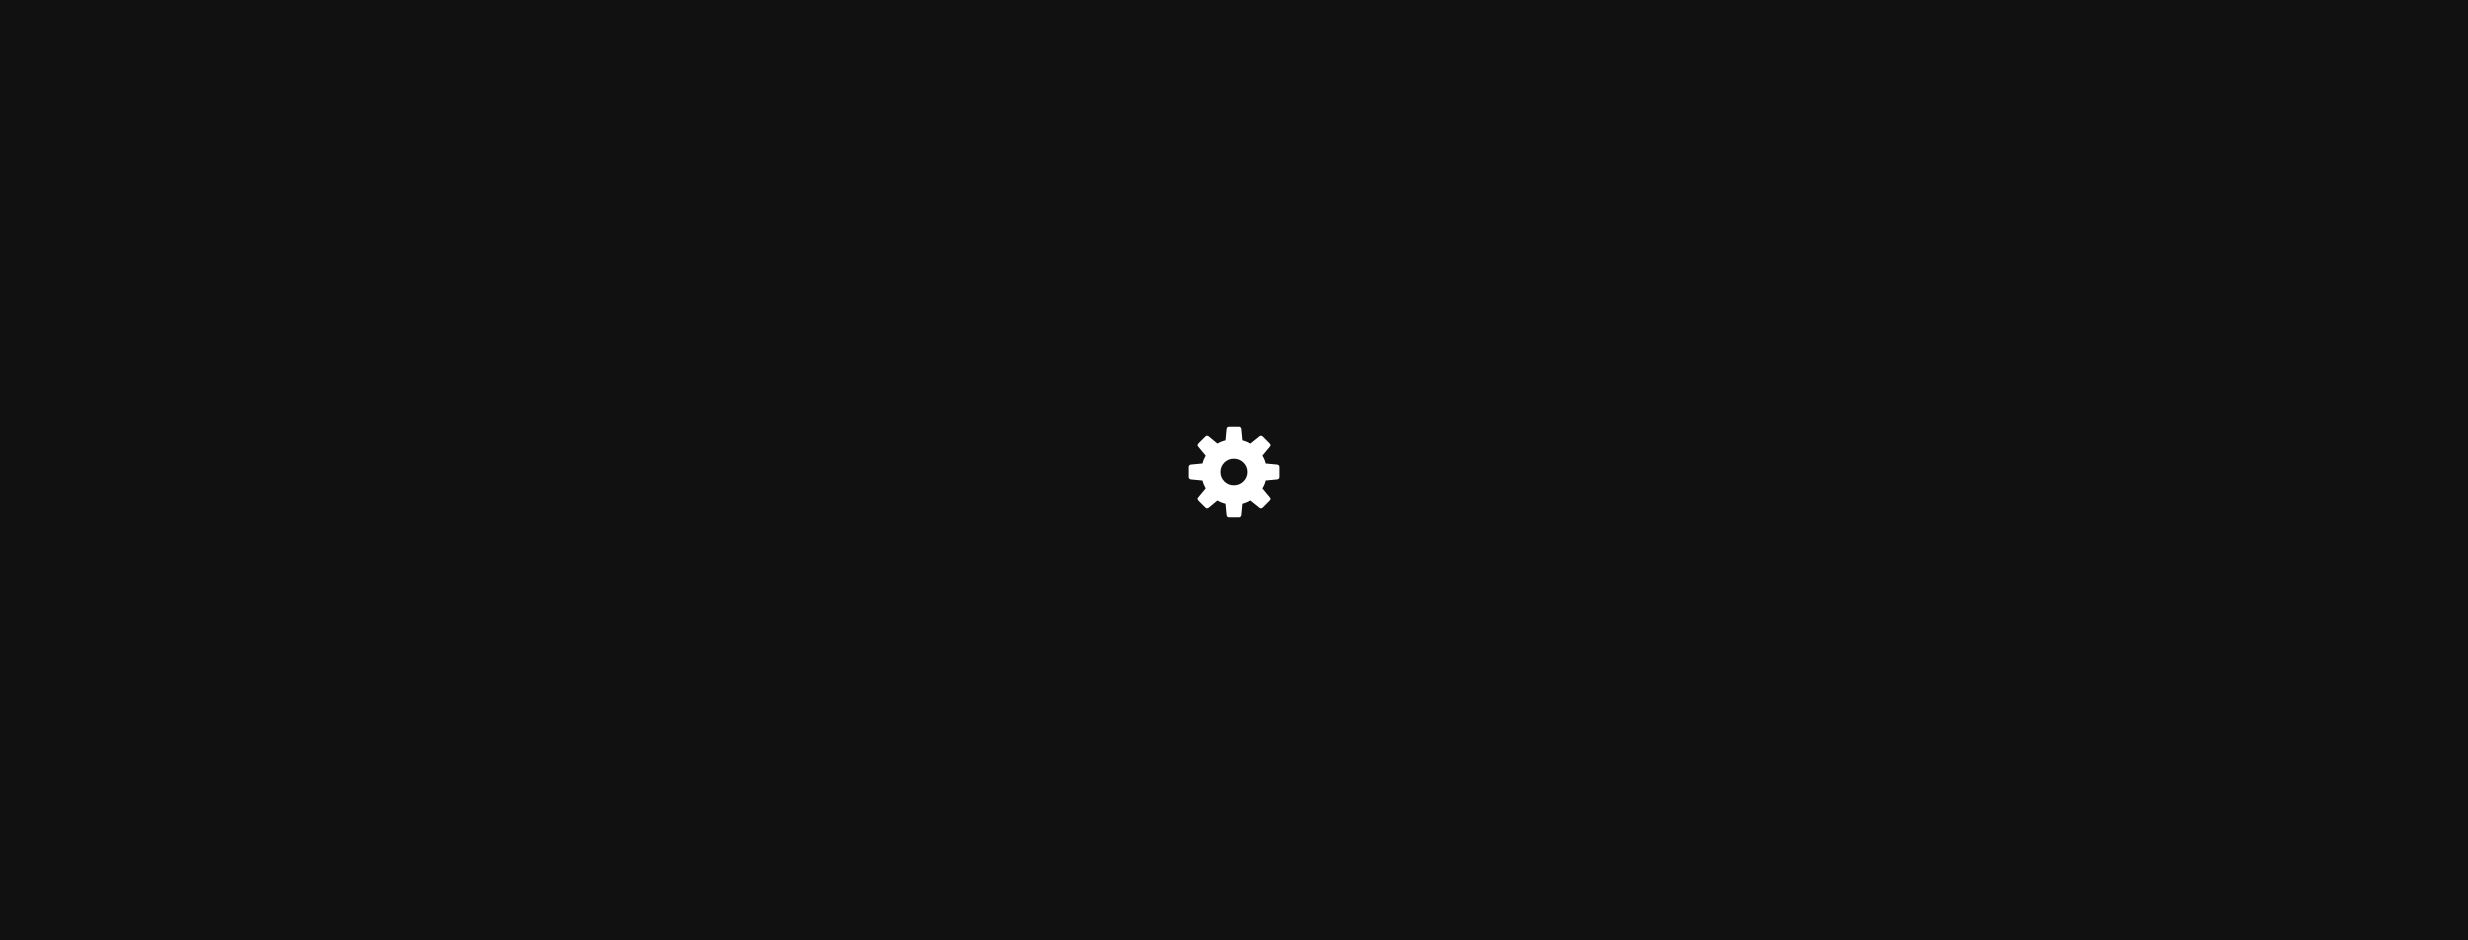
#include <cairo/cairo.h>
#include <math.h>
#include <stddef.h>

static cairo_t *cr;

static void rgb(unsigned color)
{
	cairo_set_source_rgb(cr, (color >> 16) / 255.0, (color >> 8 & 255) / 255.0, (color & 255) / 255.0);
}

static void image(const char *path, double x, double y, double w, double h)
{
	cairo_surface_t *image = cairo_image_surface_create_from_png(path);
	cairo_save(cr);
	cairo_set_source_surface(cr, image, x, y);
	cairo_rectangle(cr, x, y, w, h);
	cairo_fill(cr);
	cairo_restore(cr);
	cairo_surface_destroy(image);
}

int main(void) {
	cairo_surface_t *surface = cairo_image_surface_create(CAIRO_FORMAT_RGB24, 2468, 940);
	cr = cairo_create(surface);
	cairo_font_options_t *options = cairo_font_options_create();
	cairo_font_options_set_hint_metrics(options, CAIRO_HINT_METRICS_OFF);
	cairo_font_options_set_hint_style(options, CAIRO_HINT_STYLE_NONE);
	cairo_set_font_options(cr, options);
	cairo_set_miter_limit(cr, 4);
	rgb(0x111111);
	cairo_paint(cr);
	image("img/1.png", 1188, 426, 92, 92);
	cairo_surface_write_to_png(surface, "page.png");
	cairo_font_options_destroy(options);
	cairo_destroy(cr);
	cairo_surface_destroy(surface);
	return 0;
}
